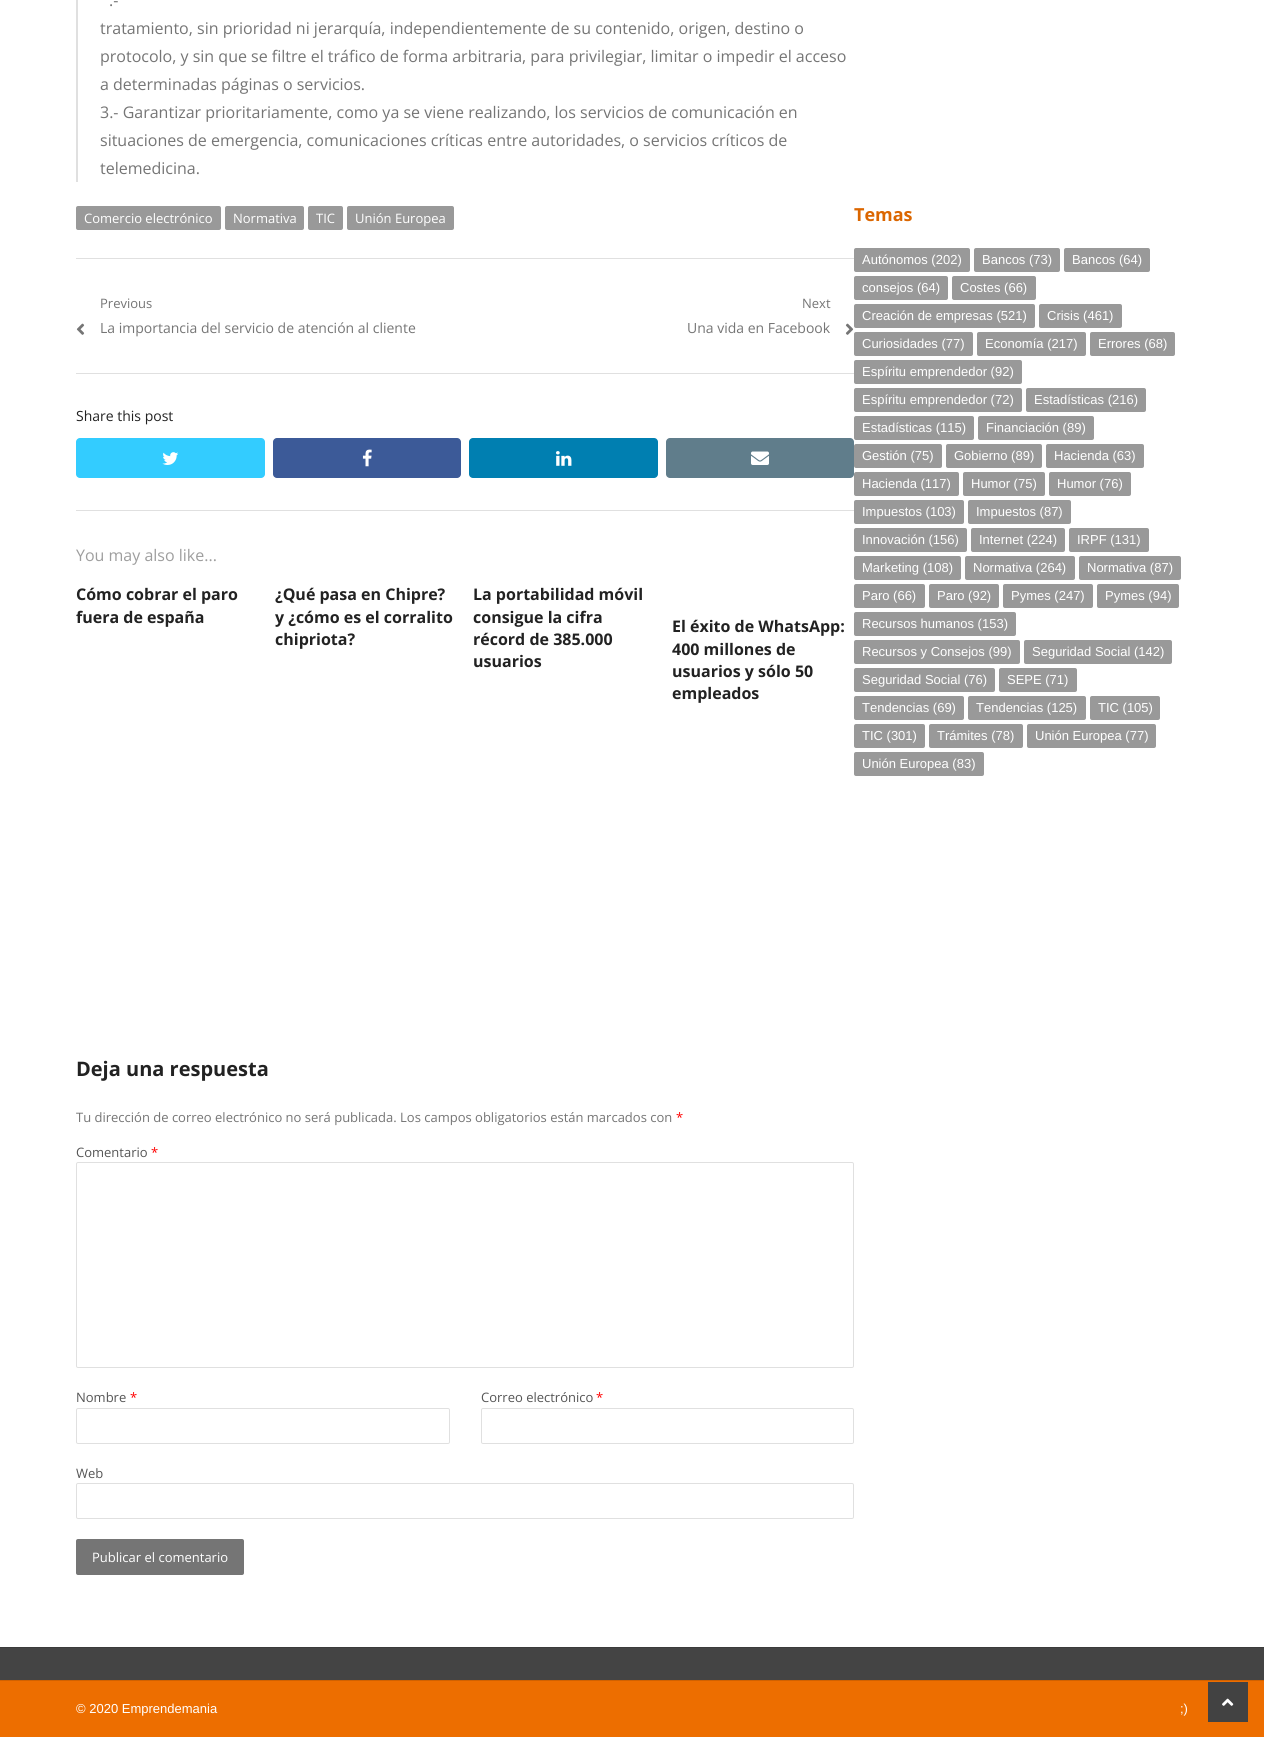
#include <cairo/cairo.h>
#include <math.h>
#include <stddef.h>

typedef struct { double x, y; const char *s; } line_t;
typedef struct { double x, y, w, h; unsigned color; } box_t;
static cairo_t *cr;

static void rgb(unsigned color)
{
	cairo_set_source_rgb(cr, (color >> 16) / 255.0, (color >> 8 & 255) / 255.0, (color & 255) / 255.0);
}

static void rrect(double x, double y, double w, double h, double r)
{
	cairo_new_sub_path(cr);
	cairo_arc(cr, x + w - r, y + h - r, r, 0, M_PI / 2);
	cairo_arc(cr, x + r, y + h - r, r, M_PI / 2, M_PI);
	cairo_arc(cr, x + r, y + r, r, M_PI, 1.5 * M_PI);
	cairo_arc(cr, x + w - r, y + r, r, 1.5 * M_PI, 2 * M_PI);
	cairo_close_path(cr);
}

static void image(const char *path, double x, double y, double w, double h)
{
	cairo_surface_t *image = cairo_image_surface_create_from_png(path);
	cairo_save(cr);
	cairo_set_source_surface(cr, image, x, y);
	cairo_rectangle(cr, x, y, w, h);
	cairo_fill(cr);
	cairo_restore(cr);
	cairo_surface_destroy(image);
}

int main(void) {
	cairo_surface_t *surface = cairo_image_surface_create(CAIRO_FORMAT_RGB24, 1264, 1737);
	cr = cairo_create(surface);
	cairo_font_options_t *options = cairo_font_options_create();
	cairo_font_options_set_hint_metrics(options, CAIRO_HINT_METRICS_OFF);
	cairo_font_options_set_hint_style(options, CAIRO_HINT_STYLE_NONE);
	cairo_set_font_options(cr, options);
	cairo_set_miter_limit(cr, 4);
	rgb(0xffffff);
	cairo_paint(cr);
	rgb(0xe0e0e0);
	cairo_rectangle(cr, 76, 258, 778, 1);
	cairo_fill(cr);
	cairo_rectangle(cr, 76, 0, 2, 182);
	cairo_fill(cr);
	rgb(0x999999);
	rrect(76, 206, 145, 24, 2);
	cairo_fill(cr);
	rrect(225, 206, 79, 24, 2);
	cairo_fill(cr);
	rrect(308, 206, 35, 24, 2);
	cairo_fill(cr);
	rrect(347, 206, 107, 24, 2);
	cairo_fill(cr);
	rgb(0xe0e0e0);
	cairo_rectangle(cr, 76, 373, 778, 1);
	cairo_fill(cr);
	image("img/1.png", 76, 323, 9, 12);
	image("img/2.png", 845, 323, 9, 12);
	cairo_rectangle(cr, 76, 510, 778, 1);
	cairo_fill(cr);
	rgb(0x33ccff);
	rrect(76, 438, 189, 40, 4);
	cairo_fill(cr);
	image("img/3.png", 162, 452, 17, 13);
	rgb(0x3c5a98);
	rrect(273, 438, 188, 40, 4);
	cairo_fill(cr);
	image("img/4.png", 362, 449, 10, 18);
	rgb(0x007fb1);
	rrect(469, 438, 189, 40, 4);
	cairo_fill(cr);
	image("img/5.png", 556, 451, 16, 15);
	rgb(0x607d8b);
	rrect(666, 438, 188, 40, 4);
	cairo_fill(cr);
	image("img/6.png", 751, 451, 18, 14);
	rrect(76.5, 1162.5, 777, 205, 1.5);
	rgb(0xe0e0e0);
	cairo_set_line_width(cr, 1);
	cairo_stroke(cr);
	rrect(76.5, 1408.5, 373, 35, 1.5);
	cairo_stroke(cr);
	rrect(481.5, 1408.5, 372, 35, 1.5);
	cairo_stroke(cr);
	rrect(76.5, 1483.5, 777, 35, 1.5);
	cairo_stroke(cr);
	rgb(0x757575);
	rrect(76, 1539, 168, 36, 2);
	cairo_fill(cr);
	rgb(0x999999);
	rrect(854, 248, 116, 24, 2);
	cairo_fill(cr);
	rrect(974, 248, 86, 24, 2);
	cairo_fill(cr);
	rrect(1064, 248, 86, 24, 2);
	cairo_fill(cr);
	rrect(854, 276, 94, 24, 2);
	cairo_fill(cr);
	rrect(952, 276, 84, 24, 2);
	cairo_fill(cr);
	rrect(854, 304, 181, 24, 2);
	cairo_fill(cr);
	rrect(1039, 304, 83, 24, 2);
	cairo_fill(cr);
	rrect(854, 332, 119, 24, 2);
	cairo_fill(cr);
	rrect(977, 332, 109, 24, 2);
	cairo_fill(cr);
	rrect(1090, 332, 85, 24, 2);
	cairo_fill(cr);
	rrect(854, 360, 168, 24, 2);
	cairo_fill(cr);
	rrect(854, 388, 168, 24, 2);
	cairo_fill(cr);
	rrect(1026, 388, 120, 24, 2);
	cairo_fill(cr);
	rrect(854, 416, 120, 24, 2);
	cairo_fill(cr);
	rrect(978, 416, 116, 24, 2);
	cairo_fill(cr);
	rrect(854, 444, 88, 24, 2);
	cairo_fill(cr);
	rrect(946, 444, 96, 24, 2);
	cairo_fill(cr);
	rrect(1046, 444, 98, 24, 2);
	cairo_fill(cr);
	rrect(854, 472, 105, 24, 2);
	cairo_fill(cr);
	rrect(963, 472, 82, 24, 2);
	cairo_fill(cr);
	rrect(1049, 472, 82, 24, 2);
	cairo_fill(cr);
	rrect(854, 500, 110, 24, 2);
	cairo_fill(cr);
	rrect(968, 500, 103, 24, 2);
	cairo_fill(cr);
	rrect(854, 528, 113, 24, 2);
	cairo_fill(cr);
	rrect(971, 528, 94, 24, 2);
	cairo_fill(cr);
	rrect(1069, 528, 80, 24, 2);
	cairo_fill(cr);
	rrect(854, 556, 107, 24, 2);
	cairo_fill(cr);
	rrect(965, 556, 110, 24, 2);
	cairo_fill(cr);
	rrect(1079, 556, 102, 24, 2);
	cairo_fill(cr);
	rrect(854, 584, 71, 24, 2);
	cairo_fill(cr);
	rrect(929, 584, 70, 24, 2);
	cairo_fill(cr);
	rrect(1003, 584, 90, 24, 2);
	cairo_fill(cr);
	rrect(1097, 584, 82, 24, 2);
	cairo_fill(cr);
	rrect(854, 612, 162, 24, 2);
	cairo_fill(cr);
	rrect(854, 640, 166, 24, 2);
	cairo_fill(cr);
	rrect(1024, 640, 148, 24, 2);
	cairo_fill(cr);
	rrect(854, 668, 141, 24, 2);
	cairo_fill(cr);
	rrect(999, 668, 78, 24, 2);
	cairo_fill(cr);
	rrect(854, 696, 110, 24, 2);
	cairo_fill(cr);
	rrect(968, 696, 118, 24, 2);
	cairo_fill(cr);
	rrect(1090, 696, 70, 24, 2);
	cairo_fill(cr);
	rrect(854, 724, 71, 24, 2);
	cairo_fill(cr);
	rrect(929, 724, 94, 24, 2);
	cairo_fill(cr);
	rrect(1027, 724, 129, 24, 2);
	cairo_fill(cr);
	rrect(854, 752, 130, 24, 2);
	cairo_fill(cr);
	{
		static const box_t items[] = {
			{0, 1648, 1264, 32, 0x444444},
			{0, 1647, 1264, 1, 0x3c3c3c},
			{0, 1681, 1264, 56, 0xed6e00},
			{0, 1680, 1264, 1, 0xd16100},
			{1208, 1682, 40, 40, 0x424242},
		};
		for (size_t i = 0; i < sizeof items / sizeof *items; i++) {
			rgb(items[i].color);
			cairo_rectangle(cr, items[i].x, items[i].y, items[i].w, items[i].h);
			cairo_fill(cr);
		}
	}
	image("img/7.png", 1222, 1698, 12, 8);
	cairo_select_font_face(cr, "Open Sans", CAIRO_FONT_SLANT_NORMAL, CAIRO_FONT_WEIGHT_NORMAL);
	cairo_set_font_size(cr, 16);
	rgb(0x757575);
	{
		static const line_t items[] = {
			{109, 6, ".-"},
			{100, 34, "tratamiento, sin prioridad ni jerarquía, independientemente de su contenido, origen, destino o"},
			{100, 62, "protocolo, y sin que se filtre el tráfico de forma arbitraria, para privilegiar, limitar o impedir el acceso"},
			{100, 90, "a determinadas páginas o servicios."},
			{100, 118, "3.- Garantizar prioritariamente, como ya se viene realizando, los servicios de comunicación en"},
			{100, 146, "situaciones de emergencia, comunicaciones críticas entre autoridades, o servicios críticos de"},
			{100, 174, "telemedicina."},
		};
		for (size_t i = 0; i < sizeof items / sizeof *items; i++) {
			cairo_move_to(cr, items[i].x, items[i].y);
			cairo_show_text(cr, items[i].s);
		}
	}
	cairo_set_font_size(cr, 13);
	rgb(0xffffff);
	{
		static const line_t items[] = {
			{84, 223, "Comercio electrónico"},
			{233, 223, "Normativa"},
			{316, 223, "TIC"},
			{355, 223, "Unión Europea"},
		};
		for (size_t i = 0; i < sizeof items / sizeof *items; i++) {
			cairo_move_to(cr, items[i].x, items[i].y);
			cairo_show_text(cr, items[i].s);
		}
	}
	rgb(0x757575);
	cairo_move_to(cr, 100, 308);
	cairo_show_text(cr, "Previous");
	cairo_set_font_size(cr, 14);
	cairo_move_to(cr, 100, 333);
	cairo_show_text(cr, "La importancia del servicio de atención al cliente");
	cairo_set_font_size(cr, 13);
	cairo_move_to(cr, 802, 308);
	cairo_show_text(cr, "Next");
	cairo_set_font_size(cr, 14);
	cairo_move_to(cr, 687, 333);
	cairo_show_text(cr, "Una vida en Facebook");
	rgb(0x222222);
	cairo_move_to(cr, 76, 421);
	cairo_show_text(cr, "Share this post");
	cairo_set_font_size(cr, 16);
	rgb(0x9e9e9e);
	cairo_move_to(cr, 76, 561);
	cairo_show_text(cr, "You may also like...");
	cairo_select_font_face(cr, "Open Sans", CAIRO_FONT_SLANT_NORMAL, CAIRO_FONT_WEIGHT_BOLD);
	rgb(0x222222);
	{
		static const line_t items[] = {
			{76, 600, "Cómo cobrar el paro"},
			{76, 623, "fuera de españa"},
			{275, 600, "¿Qué pasa en Chipre?"},
			{275, 623, "y ¿cómo es el corralito"},
			{275, 645, "chipriota?"},
			{473, 600, "La portabilidad móvil"},
			{473, 623, "consigue la cifra"},
			{473, 645, "récord de 385.000"},
			{473, 667, "usuarios"},
			{672, 632, "El éxito de WhatsApp:"},
			{672, 655, "400 millones de"},
			{672, 677, "usuarios y sólo 50"},
			{672, 699, "empleados"},
		};
		for (size_t i = 0; i < sizeof items / sizeof *items; i++) {
			cairo_move_to(cr, items[i].x, items[i].y);
			cairo_show_text(cr, items[i].s);
		}
	}
	cairo_set_font_size(cr, 20);
	cairo_move_to(cr, 76, 1076);
	cairo_show_text(cr, "Deja una respuesta");
	cairo_select_font_face(cr, "Open Sans", CAIRO_FONT_SLANT_NORMAL, CAIRO_FONT_WEIGHT_NORMAL);
	cairo_set_font_size(cr, 13);
	rgb(0x757575);
	cairo_move_to(cr, 76, 1122);
	cairo_show_text(cr, "Tu dirección de correo electrónico no será publicada. Los campos obligatorios están marcados con");
	rgb(0xff0000);
	cairo_move_to(cr, 676, 1122);
	cairo_show_text(cr, "*");
	rgb(0x555555);
	cairo_move_to(cr, 76, 1157);
	cairo_show_text(cr, "Comentario");
	rgb(0xff0000);
	cairo_move_to(cr, 151, 1157);
	cairo_show_text(cr, "*");
	rgb(0x555555);
	cairo_move_to(cr, 76, 1402);
	cairo_show_text(cr, "Nombre");
	rgb(0xff0000);
	cairo_move_to(cr, 130, 1402);
	cairo_show_text(cr, "*");
	rgb(0x555555);
	cairo_move_to(cr, 481, 1402);
	cairo_show_text(cr, "Correo electrónico");
	rgb(0xff0000);
	cairo_move_to(cr, 596, 1402);
	cairo_show_text(cr, "*");
	rgb(0x555555);
	cairo_move_to(cr, 76, 1478);
	cairo_show_text(cr, "Web");
	rgb(0xffffff);
	cairo_move_to(cr, 92, 1562);
	cairo_show_text(cr, "Publicar el comentario");
	cairo_select_font_face(cr, "Open Sans", CAIRO_FONT_SLANT_NORMAL, CAIRO_FONT_WEIGHT_BOLD);
	cairo_set_font_size(cr, 18);
	rgb(0xdb6600);
	cairo_move_to(cr, 854, 221);
	cairo_show_text(cr, "Temas");
	cairo_select_font_face(cr, "Liberation Sans", CAIRO_FONT_SLANT_NORMAL, CAIRO_FONT_WEIGHT_NORMAL);
	cairo_set_font_size(cr, 13);
	rgb(0xffffff);
	{
		static const line_t items[] = {
			{862, 264, "Autónomos (202)"},
			{982, 264, "Bancos (73)"},
			{1072, 264, "Bancos (64)"},
			{862, 292, "consejos (64)"},
			{960, 292, "Costes (66)"},
			{862, 320, "Creación de empresas (521)"},
			{1047, 320, "Crisis (461)"},
			{862, 348, "Curiosidades (77)"},
			{985, 348, "Economía (217)"},
			{1098, 348, "Errores (68)"},
			{862, 376, "Espíritu emprendedor (92)"},
			{862, 404, "Espíritu emprendedor (72)"},
			{1034, 404, "Estadísticas (216)"},
			{862, 432, "Estadísticas (115)"},
			{986, 432, "Financiación (89)"},
			{862, 460, "Gestión (75)"},
			{954, 460, "Gobierno (89)"},
			{1054, 460, "Hacienda (63)"},
			{862, 488, "Hacienda (117)"},
			{971, 488, "Humor (75)"},
			{1057, 488, "Humor (76)"},
			{862, 516, "Impuestos (103)"},
			{976, 516, "Impuestos (87)"},
			{862, 544, "Innovación (156)"},
			{979, 544, "Internet (224)"},
			{1077, 544, "IRPF (131)"},
			{862, 572, "Marketing (108)"},
			{973, 572, "Normativa (264)"},
			{1087, 572, "Normativa (87)"},
			{862, 600, "Paro (66)"},
			{937, 600, "Paro (92)"},
			{1011, 600, "Pymes (247)"},
			{1105, 600, "Pymes (94)"},
			{862, 628, "Recursos humanos (153)"},
			{862, 656, "Recursos y Consejos (99)"},
			{1032, 656, "Seguridad Social (142)"},
			{862, 684, "Seguridad Social (76)"},
			{1007, 684, "SEPE (71)"},
			{862, 712, "Tendencias (69)"},
			{976, 712, "Tendencias (125)"},
			{1098, 712, "TIC (105)"},
			{862, 740, "TIC (301)"},
			{937, 740, "Trámites (78)"},
			{1035, 740, "Unión Europea (77)"},
			{862, 768, "Unión Europea (83)"},
			{76, 1713, "© 2020 Emprendemania"},
			{1180, 1713, ";)"},
		};
		for (size_t i = 0; i < sizeof items / sizeof *items; i++) {
			cairo_move_to(cr, items[i].x, items[i].y);
			cairo_show_text(cr, items[i].s);
		}
	}
	cairo_surface_write_to_png(surface, "page.png");
	cairo_font_options_destroy(options);
	cairo_destroy(cr);
	cairo_surface_destroy(surface);
	return 0;
}
